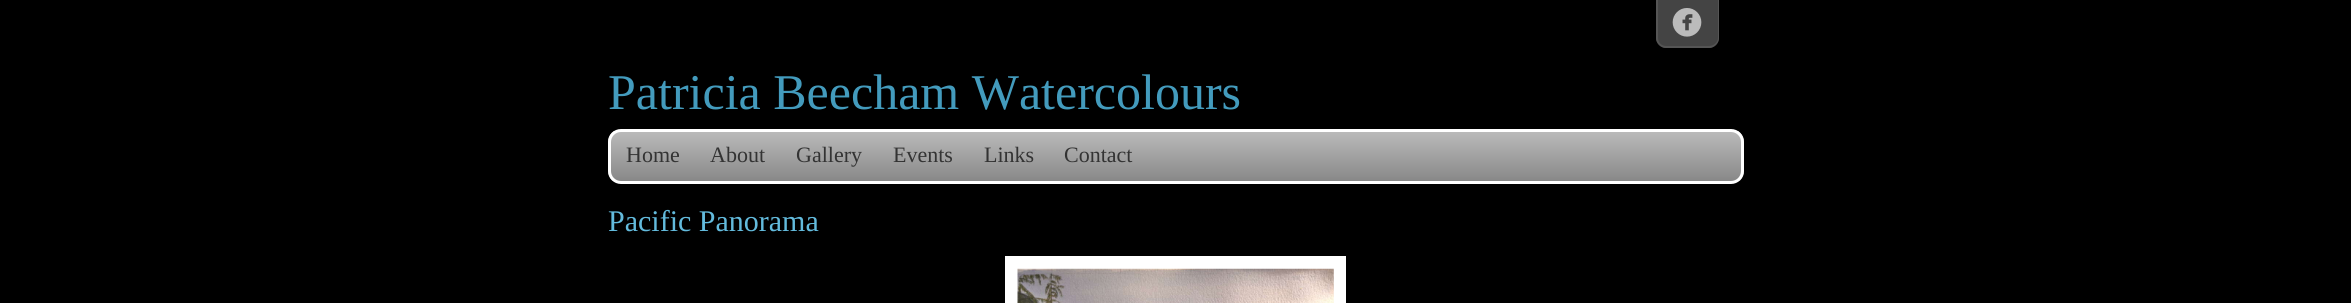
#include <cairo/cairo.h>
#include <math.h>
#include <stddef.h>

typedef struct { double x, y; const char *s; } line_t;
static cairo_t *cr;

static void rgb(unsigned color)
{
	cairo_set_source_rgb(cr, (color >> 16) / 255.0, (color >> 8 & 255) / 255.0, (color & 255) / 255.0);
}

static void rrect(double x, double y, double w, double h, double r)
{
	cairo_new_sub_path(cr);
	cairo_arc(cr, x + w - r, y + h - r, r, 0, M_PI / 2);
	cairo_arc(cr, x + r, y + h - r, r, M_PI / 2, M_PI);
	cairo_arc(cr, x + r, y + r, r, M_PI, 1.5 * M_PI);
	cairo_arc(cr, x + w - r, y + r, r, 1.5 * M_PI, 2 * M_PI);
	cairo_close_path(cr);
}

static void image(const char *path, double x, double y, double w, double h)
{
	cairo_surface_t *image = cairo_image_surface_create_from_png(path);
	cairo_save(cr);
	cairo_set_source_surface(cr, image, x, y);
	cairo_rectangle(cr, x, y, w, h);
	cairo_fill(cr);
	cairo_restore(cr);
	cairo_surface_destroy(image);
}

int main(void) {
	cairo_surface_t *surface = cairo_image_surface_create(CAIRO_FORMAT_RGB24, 2351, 303);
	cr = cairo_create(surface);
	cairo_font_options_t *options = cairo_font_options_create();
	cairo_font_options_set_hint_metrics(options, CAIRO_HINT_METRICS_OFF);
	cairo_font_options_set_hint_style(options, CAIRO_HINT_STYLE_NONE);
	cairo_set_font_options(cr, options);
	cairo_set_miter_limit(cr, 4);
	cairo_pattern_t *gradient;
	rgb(0x000000);
	cairo_paint(cr);
	rgb(0x444444);
	cairo_new_path(cr);
	cairo_move_to(cr, 1656, 0);
	cairo_line_to(cr, 1719, 0);
	cairo_line_to(cr, 1719, 38);
	cairo_curve_to(cr, 1719, 43.5, 1714.5, 48, 1709, 48);
	cairo_line_to(cr, 1666, 48);
	cairo_curve_to(cr, 1660.5, 48, 1656, 43.5, 1656, 38);
	cairo_close_path(cr);
	cairo_fill(cr);
	rgb(0x555555);
	cairo_set_fill_rule(cr, CAIRO_FILL_RULE_EVEN_ODD);
	cairo_new_path(cr);
	cairo_move_to(cr, 1656, 0);
	cairo_line_to(cr, 1719, 0);
	cairo_line_to(cr, 1719, 38);
	cairo_curve_to(cr, 1719, 43, 1714, 48, 1709, 48);
	cairo_line_to(cr, 1666, 48);
	cairo_curve_to(cr, 1661, 48, 1656, 43, 1656, 38);
	cairo_close_path(cr);
	cairo_move_to(cr, 1658, 0);
	cairo_line_to(cr, 1718, 0);
	cairo_line_to(cr, 1718, 38);
	cairo_curve_to(cr, 1718, 42, 1714, 46, 1709, 46);
	cairo_line_to(cr, 1666, 46);
	cairo_curve_to(cr, 1661, 46, 1658, 42, 1658, 38);
	cairo_close_path(cr);
	cairo_fill(cr);
	image("img/1.png", 1672, 8, 30, 29);
	cairo_save(cr);
	cairo_set_fill_rule(cr, CAIRO_FILL_RULE_WINDING);
	rrect(608, 129, 1136, 55, 13);
	cairo_clip(cr);
	gradient = cairo_pattern_create_linear(610, 131, 610, 181);
	cairo_pattern_add_color_stop_rgba(gradient, 0, 0.733, 0.733, 0.733, 1);
	cairo_pattern_add_color_stop_rgba(gradient, 1, 0.533, 0.533, 0.533, 1);
	cairo_set_source(cr, gradient);
	cairo_pattern_destroy(gradient);
	cairo_rectangle(cr, 608, 131, 1136, 50);
	cairo_fill(cr);
	cairo_restore(cr);
	rrect(609.5, 130.5, 1133, 52, 11.5);
	rgb(0xffffff);
	cairo_set_line_width(cr, 3);
	cairo_stroke(cr);
	cairo_rectangle(cr, 1011.5, 262.5, 328, 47);
	cairo_set_line_width(cr, 13);
	cairo_stroke(cr);
	image("img/2.png", 1017, 268, 317, 35);
	cairo_select_font_face(cr, "Liberation Serif", CAIRO_FONT_SLANT_NORMAL, CAIRO_FONT_WEIGHT_NORMAL);
	cairo_set_font_size(cr, 50);
	rgb(0x439bbd);
	cairo_move_to(cr, 608, 109);
	cairo_show_text(cr, "Patricia Beecham Watercolours");
	cairo_set_font_size(cr, 22);
	rgb(0x333333);
	{
		static const line_t items[] = {
			{626, 162, "Home"},
			{710, 162, "About"},
			{796, 162, "Gallery"},
			{893, 162, "Events"},
			{984, 162, "Links"},
			{1064, 162, "Contact"},
		};
		for (size_t i = 0; i < sizeof items / sizeof *items; i++) {
			cairo_move_to(cr, items[i].x, items[i].y);
			cairo_show_text(cr, items[i].s);
		}
	}
	cairo_set_font_size(cr, 30);
	rgb(0x63bbdd);
	cairo_move_to(cr, 608, 231);
	cairo_show_text(cr, "Pacific Panorama");
	cairo_surface_write_to_png(surface, "page.png");
	cairo_font_options_destroy(options);
	cairo_destroy(cr);
	cairo_surface_destroy(surface);
	return 0;
}
